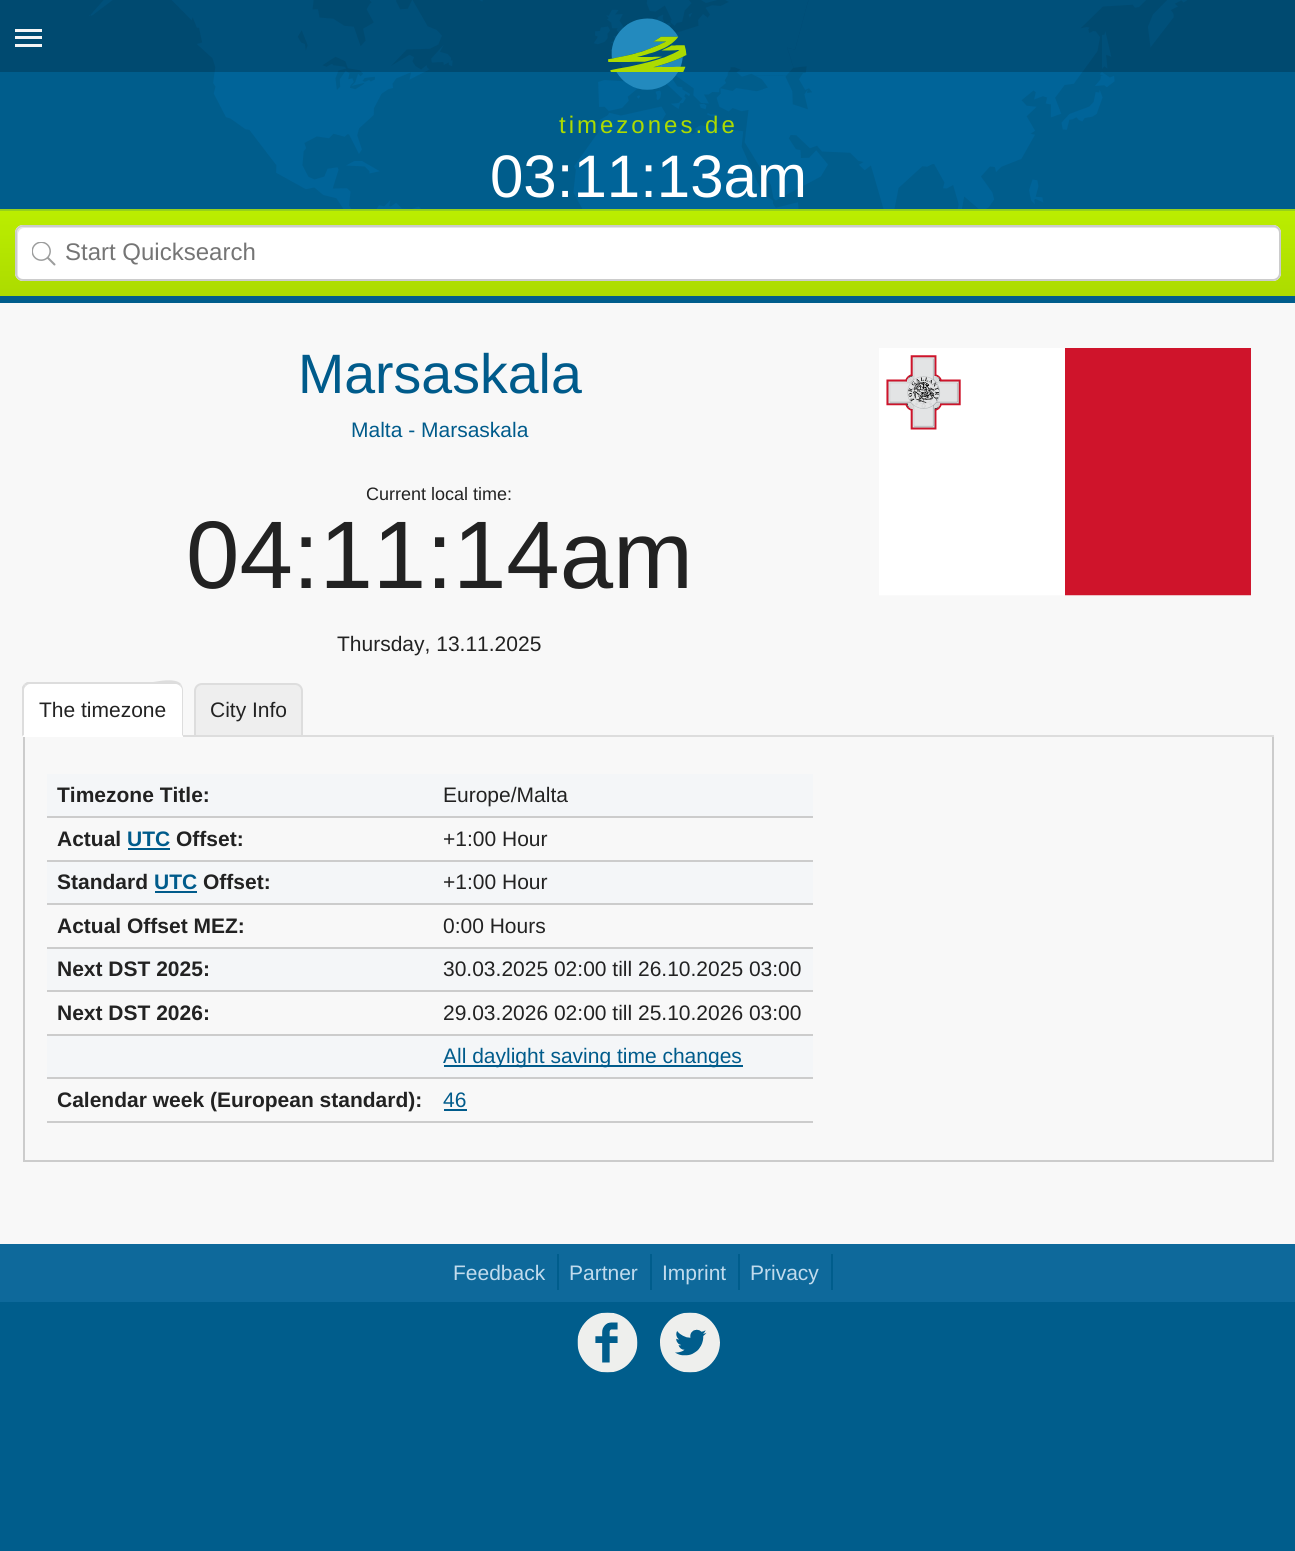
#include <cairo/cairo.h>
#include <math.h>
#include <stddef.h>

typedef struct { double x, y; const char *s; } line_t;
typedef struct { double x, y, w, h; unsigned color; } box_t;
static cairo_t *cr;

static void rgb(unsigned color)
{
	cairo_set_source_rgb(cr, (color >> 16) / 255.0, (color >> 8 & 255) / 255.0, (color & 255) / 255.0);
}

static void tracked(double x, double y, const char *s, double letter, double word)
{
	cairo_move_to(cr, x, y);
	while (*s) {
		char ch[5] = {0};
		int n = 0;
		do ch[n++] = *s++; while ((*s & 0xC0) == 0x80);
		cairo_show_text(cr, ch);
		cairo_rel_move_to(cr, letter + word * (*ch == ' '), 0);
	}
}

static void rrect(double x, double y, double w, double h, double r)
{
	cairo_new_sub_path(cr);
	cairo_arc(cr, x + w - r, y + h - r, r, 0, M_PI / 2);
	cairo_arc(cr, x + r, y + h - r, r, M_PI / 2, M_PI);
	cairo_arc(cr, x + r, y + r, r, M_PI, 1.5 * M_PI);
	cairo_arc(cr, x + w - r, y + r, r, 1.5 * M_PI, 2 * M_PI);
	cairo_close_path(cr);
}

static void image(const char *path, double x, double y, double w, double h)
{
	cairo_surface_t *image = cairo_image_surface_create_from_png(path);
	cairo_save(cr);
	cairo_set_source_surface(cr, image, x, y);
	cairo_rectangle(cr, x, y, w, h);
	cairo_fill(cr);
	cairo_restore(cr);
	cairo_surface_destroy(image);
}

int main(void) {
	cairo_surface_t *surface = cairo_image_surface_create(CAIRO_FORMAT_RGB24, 1295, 1551);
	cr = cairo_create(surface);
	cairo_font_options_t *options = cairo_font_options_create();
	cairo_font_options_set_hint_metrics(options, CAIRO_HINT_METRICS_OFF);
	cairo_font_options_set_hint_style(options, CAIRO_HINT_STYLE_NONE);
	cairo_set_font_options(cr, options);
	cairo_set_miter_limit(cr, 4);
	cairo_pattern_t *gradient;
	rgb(0x005d8c);
	cairo_paint(cr);
	image("img/1.png", 89, 0, 1098, 209);
	cairo_set_source_rgba(cr, 0, 0, 0, 0.2);
	cairo_rectangle(cr, 0, 0, 1295, 72);
	cairo_fill(cr);
	rgb(0xf5f5f5);
	cairo_rectangle(cr, 15, 29, 27, 3);
	cairo_fill(cr);
	cairo_rectangle(cr, 15, 36, 27, 3);
	cairo_fill(cr);
	cairo_rectangle(cr, 15, 44, 27, 3);
	cairo_fill(cr);
	image("img/2.png", 608, 18, 79, 72);
	gradient = cairo_pattern_create_linear(648, 210, 648, 296);
	cairo_pattern_add_color_stop_rgba(gradient, 0, 0.733, 0.933, 0, 1);
	cairo_pattern_add_color_stop_rgba(gradient, 0.47, 0.706, 0.898, 0, 1);
	cairo_pattern_add_color_stop_rgba(gradient, 1, 0.675, 0.859, 0, 1);
	cairo_set_source(cr, gradient);
	cairo_pattern_destroy(gradient);
	cairo_rectangle(cr, 0, 211, 1295, 85);
	cairo_fill(cr);
	rgb(0x96d11c);
	cairo_rectangle(cr, 0, 209, 1295, 2);
	cairo_fill(cr);
	rgb(0xffffff);
	rrect(15, 225, 1266, 56, 8);
	cairo_fill(cr);
	image("img/3.png", 32, 242, 24, 24);
	rgb(0xe5e5e5);
	cairo_new_path(cr);
	cairo_move_to(cr, 24, 228);
	cairo_line_to(cr, 1275, 228);
	cairo_curve_to(cr, 1276, 228, 1278, 229, 1279, 230);
	cairo_curve_to(cr, 1278, 228, 1276, 227, 1274, 227);
	cairo_line_to(cr, 23, 227);
	cairo_curve_to(cr, 20, 227, 17, 230, 17, 233);
	cairo_line_to(cr, 17, 273);
	cairo_curve_to(cr, 17, 275, 18, 276, 19, 277);
	cairo_curve_to(cr, 18, 277, 18, 275, 18, 274);
	cairo_line_to(cr, 18, 234);
	cairo_curve_to(cr, 18, 231, 21, 228, 24, 228);
	cairo_close_path(cr);
	cairo_fill(cr);
	rrect(16, 226, 1264, 54, 7);
	rgb(0xcccccc);
	cairo_stroke(cr);
	rgb(0xf8f8f8);
	cairo_rectangle(cr, 0, 303, 1295, 941);
	cairo_fill(cr);
	image("img/4.png", 879, 348, 372, 248);
	rgb(0xdddddd);
	cairo_rectangle(cr, 183, 735, 1091, 2);
	cairo_fill(cr);
	rgb(0xffffff);
	cairo_new_path(cr);
	cairo_move_to(cr, 31, 683);
	cairo_line_to(cr, 175, 683);
	cairo_curve_to(cr, 179.5, 683, 183, 686.5, 183, 691);
	cairo_line_to(cr, 183, 737);
	cairo_line_to(cr, 23, 737);
	cairo_line_to(cr, 23, 691);
	cairo_curve_to(cr, 23, 686.5, 26.5, 683, 31, 683);
	cairo_close_path(cr);
	cairo_fill(cr);
	rgb(0xdddddd);
	cairo_new_path(cr);
	cairo_move_to(cr, 30, 684);
	cairo_curve_to(cr, 28, 684, 27, 685, 26, 686);
	cairo_line_to(cr, 24, 684);
	cairo_line_to(cr, 27, 682);
	cairo_line_to(cr, 153, 682);
	cairo_curve_to(cr, 155, 682, 175, 677, 181, 684);
	cairo_line_to(cr, 180, 686);
	cairo_curve_to(cr, 179, 685, 177, 684, 176, 684);
	cairo_close_path(cr);
	cairo_fill(cr);
	cairo_new_path(cr);
	cairo_move_to(cr, 183, 736);
	cairo_line_to(cr, 183, 690);
	cairo_curve_to(cr, 183, 688, 182, 686, 181, 684);
	cairo_line_to(cr, 180, 686);
	cairo_curve_to(cr, 181, 687, 182, 688, 182, 690);
	cairo_line_to(cr, 182, 735);
	cairo_close_path(cr);
	cairo_fill(cr);
	cairo_new_path(cr);
	cairo_move_to(cr, 22, 687);
	cairo_line_to(cr, 24, 684);
	cairo_line_to(cr, 26, 686);
	cairo_curve_to(cr, 25, 687, 24, 688, 24, 690);
	cairo_line_to(cr, 24, 735);
	cairo_line_to(cr, 22, 736);
	cairo_close_path(cr);
	cairo_fill(cr);
	rgb(0xeeeeee);
	cairo_new_path(cr);
	cairo_move_to(cr, 202, 684);
	cairo_line_to(cr, 295, 684);
	cairo_curve_to(cr, 299, 684, 302, 687, 302, 691);
	cairo_line_to(cr, 302, 736);
	cairo_line_to(cr, 195, 736);
	cairo_line_to(cr, 195, 691);
	cairo_curve_to(cr, 195, 687, 198, 684, 202, 684);
	cairo_close_path(cr);
	cairo_fill_preserve(cr);
	rgb(0xdddddd);
	cairo_stroke(cr);
	{
		static const box_t items[] = {
			{1272, 737, 2, 424, 0xcccccc},
			{23, 1160, 1251, 2, 0xcccccc},
			{23, 737, 2, 424, 0xcccccc},
			{47, 774, 766, 42, 0xf4f6f8},
			{47, 816, 766, 2, 0xcccccc},
			{47, 860, 766, 2, 0xcccccc},
			{128, 848, 42, 2, 0x005b8b},
			{47, 862, 766, 41, 0xf4f6f8},
			{47, 903, 766, 2, 0xcccccc},
			{155, 891, 42, 2, 0x005b8b},
			{47, 947, 766, 2, 0xcccccc},
			{47, 949, 766, 41, 0xf4f6f8},
			{47, 990, 766, 2, 0xcccccc},
			{47, 1034, 766, 2, 0xcccccc},
			{47, 1036, 766, 41, 0xf4f6f8},
			{47, 1077, 766, 2, 0xcccccc},
			{444, 1065, 299, 2, 0x005b8b},
			{47, 1121, 766, 2, 0xcccccc},
			{444, 1109, 23, 2, 0x005b8b},
			{0, 1244, 1295, 58, 0x0e699b},
			{557, 1254, 2, 36, 0x005d8c},
			{650, 1254, 2, 36, 0x005d8c},
			{738, 1254, 2, 36, 0x005d8c},
			{831, 1254, 2, 36, 0x005d8c},
		};
		for (size_t i = 0; i < sizeof items / sizeof *items; i++) {
			rgb(items[i].color);
			cairo_rectangle(cr, items[i].x, items[i].y, items[i].w, items[i].h);
			cairo_fill(cr);
		}
	}
	image("img/5.png", 577, 1312, 61, 61);
	image("img/6.png", 660, 1312, 60, 61);
	cairo_select_font_face(cr, "Liberation Sans", CAIRO_FONT_SLANT_NORMAL, CAIRO_FONT_WEIGHT_NORMAL);
	cairo_set_font_size(cr, 24);
	rgb(0xacdb00);
	tracked(559, 133, "timezones.de", 3, 0);
	cairo_set_font_size(cr, 60);
	rgb(0xffffff);
	cairo_move_to(cr, 490, 197);
	cairo_show_text(cr, "03:11:13am");
	cairo_set_font_size(cr, 24);
	rgb(0x757575);
	cairo_move_to(cr, 65, 260);
	cairo_show_text(cr, "Start Quicksearch");
	cairo_set_font_size(cr, 55.5);
	rgb(0x005b8b);
	cairo_move_to(cr, 298, 393);
	cairo_show_text(cr, "Marsaskala");
	cairo_set_font_size(cr, 21);
	cairo_move_to(cr, 351, 437);
	cairo_show_text(cr, "Malta - Marsaskala");
	cairo_set_font_size(cr, 18);
	rgb(0x222222);
	cairo_move_to(cr, 366, 500);
	cairo_show_text(cr, "Current local time:");
	cairo_set_font_size(cr, 96);
	cairo_move_to(cr, 186, 588);
	cairo_show_text(cr, "04:11:14am");
	cairo_set_font_size(cr, 21);
	{
		static const line_t items[] = {
			{337, 651, "Thursday, 13.11.2025"},
			{39, 717, "The timezone"},
			{210, 717, "City Info"},
		};
		for (size_t i = 0; i < sizeof items / sizeof *items; i++) {
			cairo_move_to(cr, items[i].x, items[i].y);
			cairo_show_text(cr, items[i].s);
		}
	}
	cairo_select_font_face(cr, "Liberation Sans", CAIRO_FONT_SLANT_NORMAL, CAIRO_FONT_WEIGHT_BOLD);
	cairo_move_to(cr, 57, 802);
	cairo_show_text(cr, "Timezone Title:");
	cairo_select_font_face(cr, "Liberation Sans", CAIRO_FONT_SLANT_NORMAL, CAIRO_FONT_WEIGHT_NORMAL);
	cairo_move_to(cr, 443, 802);
	cairo_show_text(cr, "Europe/Malta");
	cairo_select_font_face(cr, "Liberation Sans", CAIRO_FONT_SLANT_NORMAL, CAIRO_FONT_WEIGHT_BOLD);
	cairo_move_to(cr, 57, 846);
	cairo_show_text(cr, "Actual");
	rgb(0x005b8b);
	cairo_move_to(cr, 127, 846);
	cairo_show_text(cr, "UTC");
	rgb(0x222222);
	cairo_move_to(cr, 176, 846);
	cairo_show_text(cr, "Offset:");
	cairo_select_font_face(cr, "Liberation Sans", CAIRO_FONT_SLANT_NORMAL, CAIRO_FONT_WEIGHT_NORMAL);
	cairo_move_to(cr, 443, 846);
	cairo_show_text(cr, "+1:00 Hour");
	cairo_select_font_face(cr, "Liberation Sans", CAIRO_FONT_SLANT_NORMAL, CAIRO_FONT_WEIGHT_BOLD);
	cairo_move_to(cr, 57, 889);
	cairo_show_text(cr, "Standard");
	rgb(0x005b8b);
	cairo_move_to(cr, 154, 889);
	cairo_show_text(cr, "UTC");
	rgb(0x222222);
	cairo_move_to(cr, 203, 889);
	cairo_show_text(cr, "Offset:");
	cairo_select_font_face(cr, "Liberation Sans", CAIRO_FONT_SLANT_NORMAL, CAIRO_FONT_WEIGHT_NORMAL);
	cairo_move_to(cr, 443, 889);
	cairo_show_text(cr, "+1:00 Hour");
	cairo_select_font_face(cr, "Liberation Sans", CAIRO_FONT_SLANT_NORMAL, CAIRO_FONT_WEIGHT_BOLD);
	cairo_move_to(cr, 57, 933);
	cairo_show_text(cr, "Actual Offset MEZ:");
	cairo_select_font_face(cr, "Liberation Sans", CAIRO_FONT_SLANT_NORMAL, CAIRO_FONT_WEIGHT_NORMAL);
	cairo_move_to(cr, 443, 933);
	cairo_show_text(cr, "0:00 Hours");
	cairo_select_font_face(cr, "Liberation Sans", CAIRO_FONT_SLANT_NORMAL, CAIRO_FONT_WEIGHT_BOLD);
	cairo_move_to(cr, 57, 976);
	cairo_show_text(cr, "Next DST 2025:");
	cairo_select_font_face(cr, "Liberation Sans", CAIRO_FONT_SLANT_NORMAL, CAIRO_FONT_WEIGHT_NORMAL);
	cairo_move_to(cr, 443, 976);
	cairo_show_text(cr, "30.03.2025 02:00 till 26.10.2025 03:00");
	cairo_select_font_face(cr, "Liberation Sans", CAIRO_FONT_SLANT_NORMAL, CAIRO_FONT_WEIGHT_BOLD);
	cairo_move_to(cr, 57, 1020);
	cairo_show_text(cr, "Next DST 2026:");
	cairo_select_font_face(cr, "Liberation Sans", CAIRO_FONT_SLANT_NORMAL, CAIRO_FONT_WEIGHT_NORMAL);
	cairo_move_to(cr, 443, 1020);
	cairo_show_text(cr, "29.03.2026 02:00 till 25.10.2026 03:00");
	rgb(0x005b8b);
	cairo_move_to(cr, 443, 1063);
	cairo_show_text(cr, "All daylight saving time changes");
	cairo_select_font_face(cr, "Liberation Sans", CAIRO_FONT_SLANT_NORMAL, CAIRO_FONT_WEIGHT_BOLD);
	rgb(0x222222);
	cairo_move_to(cr, 57, 1107);
	cairo_show_text(cr, "Calendar week (European standard):");
	cairo_select_font_face(cr, "Liberation Sans", CAIRO_FONT_SLANT_NORMAL, CAIRO_FONT_WEIGHT_NORMAL);
	rgb(0x005b8b);
	cairo_move_to(cr, 443, 1107);
	cairo_show_text(cr, "46");
	rgb(0xc1dbed);
	{
		static const line_t items[] = {
			{453, 1280, "Feedback"},
			{569, 1280, "Partner"},
			{662, 1280, "Imprint"},
			{750, 1280, "Privacy"},
		};
		for (size_t i = 0; i < sizeof items / sizeof *items; i++) {
			cairo_move_to(cr, items[i].x, items[i].y);
			cairo_show_text(cr, items[i].s);
		}
	}
	cairo_surface_write_to_png(surface, "page.png");
	cairo_font_options_destroy(options);
	cairo_destroy(cr);
	cairo_surface_destroy(surface);
	return 0;
}
